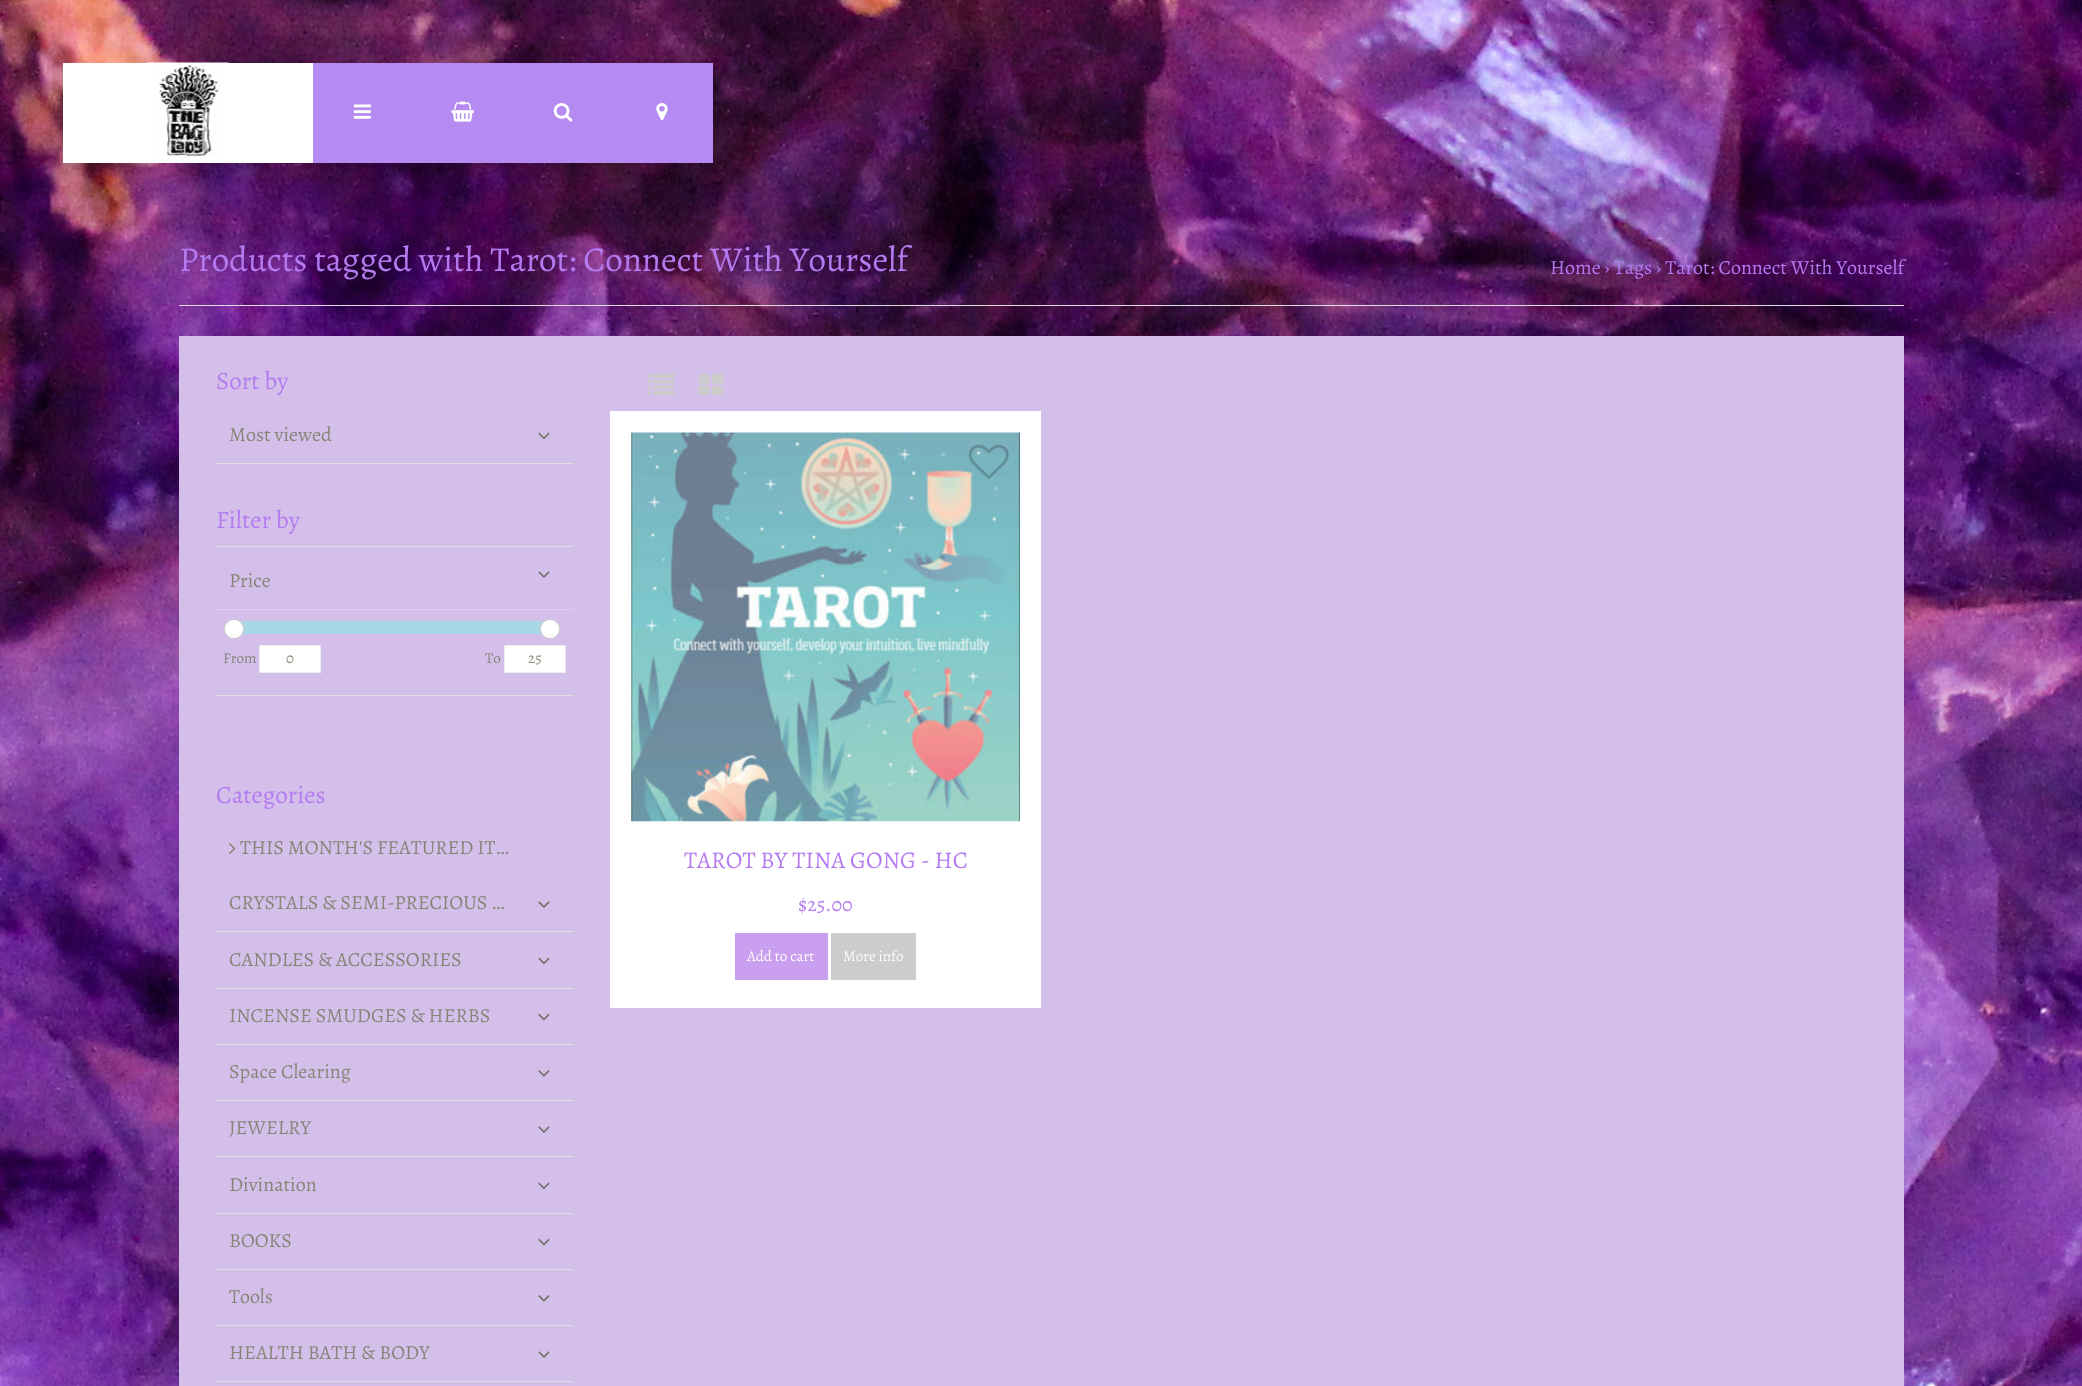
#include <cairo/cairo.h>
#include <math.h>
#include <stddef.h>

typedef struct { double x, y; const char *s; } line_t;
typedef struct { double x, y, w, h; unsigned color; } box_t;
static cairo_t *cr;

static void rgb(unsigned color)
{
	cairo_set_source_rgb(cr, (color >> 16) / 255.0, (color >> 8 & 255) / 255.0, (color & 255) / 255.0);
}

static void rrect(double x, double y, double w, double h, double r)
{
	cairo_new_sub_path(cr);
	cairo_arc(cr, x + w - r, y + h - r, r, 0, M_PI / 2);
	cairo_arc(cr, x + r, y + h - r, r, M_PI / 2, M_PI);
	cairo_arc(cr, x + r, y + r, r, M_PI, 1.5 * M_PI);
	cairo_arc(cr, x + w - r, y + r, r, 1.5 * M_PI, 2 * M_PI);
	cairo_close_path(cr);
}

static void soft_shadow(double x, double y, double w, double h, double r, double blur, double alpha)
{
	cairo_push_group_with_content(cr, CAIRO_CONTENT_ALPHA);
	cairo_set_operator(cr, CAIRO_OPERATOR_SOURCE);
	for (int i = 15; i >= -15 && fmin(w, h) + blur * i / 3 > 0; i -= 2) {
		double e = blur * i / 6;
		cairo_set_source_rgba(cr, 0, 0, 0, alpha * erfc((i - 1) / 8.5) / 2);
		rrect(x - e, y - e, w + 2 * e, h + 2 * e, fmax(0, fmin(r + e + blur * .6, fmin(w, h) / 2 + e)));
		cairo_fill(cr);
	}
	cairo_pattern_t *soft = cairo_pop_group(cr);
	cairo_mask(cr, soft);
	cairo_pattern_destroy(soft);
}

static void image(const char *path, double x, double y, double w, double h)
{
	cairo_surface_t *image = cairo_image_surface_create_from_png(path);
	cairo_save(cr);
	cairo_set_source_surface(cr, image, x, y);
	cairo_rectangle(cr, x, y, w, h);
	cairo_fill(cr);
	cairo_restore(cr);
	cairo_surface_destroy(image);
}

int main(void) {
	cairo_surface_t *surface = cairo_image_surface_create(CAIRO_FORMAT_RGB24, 2082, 1386);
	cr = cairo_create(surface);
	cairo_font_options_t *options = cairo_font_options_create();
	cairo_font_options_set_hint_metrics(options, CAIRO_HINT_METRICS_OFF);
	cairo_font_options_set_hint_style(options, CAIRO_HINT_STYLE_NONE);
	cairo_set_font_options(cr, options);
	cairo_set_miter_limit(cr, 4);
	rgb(0xffffff);
	cairo_paint(cr);
	image("img/6.png", 0, 0, 2082, 1386);
	rgb(0x000000);
	soft_shadow(63, 70, 650, 100, 0, 12.5, 0.1);
	soft_shadow(63, 68, 650, 100, 0, 5, 0.1);
	rgb(0xffffff);
	cairo_rectangle(cr, 63, 63, 250, 100);
	cairo_fill(cr);
	image("img/1.png", 146, 62, 84, 95);
	rgb(0xb68bf1);
	cairo_rectangle(cr, 313, 63, 400, 100);
	cairo_fill(cr);
	image("img/2.png", 353, 104, 18, 15);
	image("img/3.png", 451, 101, 24, 21);
	image("img/4.png", 553, 103, 20, 19);
	image("img/5.png", 656, 103, 12, 18);
	{
		static const box_t items[] = {
			{179, 305, 1725, 1, 0xdedede},
			{179, 336, 1725, 1050, 0xd4bfea},
			{216, 463, 357, 1, 0xdedede},
		};
		for (size_t i = 0; i < sizeof items / sizeof *items; i++) {
			rgb(items[i].color);
			cairo_rectangle(cr, items[i].x, items[i].y, items[i].w, items[i].h);
			cairo_fill(cr);
		}
	}
	image("img/7.png", 538, 432, 12, 8);
	cairo_rectangle(cr, 216, 546, 357, 1);
	cairo_fill(cr);
	image("img/8.png", 538, 571, 12, 7);
	{
		static const box_t items[] = {
			{216, 609, 357, 1, 0xddccee},
			{216, 695, 357, 1, 0xdedede},
			{240, 621, 304, 13, 0xa5d8e4},
		};
		for (size_t i = 0; i < sizeof items / sizeof *items; i++) {
			rgb(items[i].color);
			cairo_rectangle(cr, items[i].x, items[i].y, items[i].w, items[i].h);
			cairo_fill(cr);
		}
	}
	rgb(0xffffff);
	cairo_arc(cr, 234, 629, 9.5, 0, 2 * M_PI);
	cairo_fill_preserve(cr);
	rgb(0xcccccc);
	cairo_set_line_width(cr, 1);
	cairo_stroke(cr);
	rgb(0xffffff);
	cairo_arc(cr, 550, 629, 9.5, 0, 2 * M_PI);
	cairo_fill_preserve(cr);
	rgb(0xcccccc);
	cairo_stroke(cr);
	rgb(0xffffff);
	cairo_rectangle(cr, 259.5, 645.5, 61, 27);
	cairo_fill_preserve(cr);
	rgb(0xe9ecef);
	cairo_stroke(cr);
	rgb(0xffffff);
	cairo_rectangle(cr, 504.5, 645.5, 61, 27);
	cairo_fill_preserve(cr);
	rgb(0xe9ecef);
	cairo_stroke(cr);
	image("img/9.png", 229, 843, 7, 12);
	rgb(0xdedede);
	cairo_rectangle(cr, 216, 931, 357, 1);
	cairo_fill(cr);
	image("img/8.png", 538, 901, 12, 7);
	cairo_rectangle(cr, 216, 988, 357, 1);
	cairo_fill(cr);
	image("img/7.png", 538, 957, 12, 8);
	cairo_rectangle(cr, 216, 1044, 357, 1);
	cairo_fill(cr);
	image("img/10.png", 538, 1014, 12, 7);
	cairo_rectangle(cr, 216, 1100, 357, 1);
	cairo_fill(cr);
	image("img/11.png", 538, 1070, 12, 7);
	cairo_rectangle(cr, 216, 1156, 357, 1);
	cairo_fill(cr);
	image("img/8.png", 538, 1126, 12, 7);
	cairo_rectangle(cr, 216, 1213, 357, 1);
	cairo_fill(cr);
	image("img/7.png", 538, 1182, 12, 8);
	cairo_rectangle(cr, 216, 1269, 357, 1);
	cairo_fill(cr);
	image("img/10.png", 538, 1239, 12, 7);
	cairo_rectangle(cr, 216, 1325, 357, 1);
	cairo_fill(cr);
	image("img/11.png", 538, 1295, 12, 7);
	cairo_rectangle(cr, 216, 1381, 357, 1);
	cairo_fill(cr);
	image("img/8.png", 538, 1351, 12, 7);
	rgb(0xffffff);
	cairo_rectangle(cr, 610, 411, 431, 597);
	cairo_fill(cr);
	image("img/12.png", 631, 432, 389, 390);
	image("img/13.png", 968, 444, 41, 35);
	rgb(0xcb9fef);
	cairo_rectangle(cr, 735, 933, 93, 47);
	cairo_fill(cr);
	rgb(0xcccccc);
	cairo_rectangle(cr, 831, 933, 85, 47);
	cairo_fill(cr);
	image("img/14.png", 647, 374, 28, 21);
	image("img/15.png", 698, 374, 26, 21);
	cairo_select_font_face(cr, "Alegreya", CAIRO_FONT_SLANT_NORMAL, CAIRO_FONT_WEIGHT_NORMAL);
	cairo_set_font_size(cr, 35);
	rgb(0xb47bf1);
	cairo_move_to(cr, 179, 271);
	cairo_show_text(cr, "Products tagged with Tarot: Connect With Yourself");
	cairo_set_font_size(cr, 20);
	cairo_move_to(cr, 1550, 274);
	cairo_show_text(cr, "Home › Tags › Tarot: Connect With Yourself");
	cairo_set_font_size(cr, 25);
	cairo_move_to(cr, 216, 389);
	cairo_show_text(cr, "Sort by");
	cairo_set_font_size(cr, 20);
	rgb(0x888377);
	cairo_move_to(cr, 229, 441);
	cairo_show_text(cr, "Most viewed");
	cairo_set_font_size(cr, 25);
	rgb(0xb47bf1);
	cairo_move_to(cr, 216, 528);
	cairo_show_text(cr, "Filter by");
	cairo_set_font_size(cr, 20);
	rgb(0x888377);
	cairo_move_to(cr, 229, 587);
	cairo_show_text(cr, "Price");
	cairo_set_font_size(cr, 15);
	{
		static const line_t items[] = {
			{223, 663, "From"},
			{286, 663, "0"},
			{485, 663, "To"},
			{528, 663, "25"},
		};
		for (size_t i = 0; i < sizeof items / sizeof *items; i++) {
			cairo_move_to(cr, items[i].x, items[i].y);
			cairo_show_text(cr, items[i].s);
		}
	}
	cairo_set_font_size(cr, 25);
	rgb(0xb47bf1);
	cairo_move_to(cr, 216, 803);
	cairo_show_text(cr, "Categories");
	cairo_set_font_size(cr, 20);
	rgb(0x888377);
	{
		static const line_t items[] = {
			{240, 854, "THIS MONTH'S FEATURED IT…"},
			{229, 909, "CRYSTALS & SEMI-PRECIOUS …"},
			{229, 966, "CANDLES & ACCESSORIES"},
			{229, 1022, "INCENSE SMUDGES & HERBS"},
			{229, 1078, "Space Clearing"},
			{229, 1134, "JEWELRY"},
			{229, 1191, "Divination"},
			{229, 1247, "BOOKS"},
			{229, 1303, "Tools"},
			{229, 1359, "HEALTH BATH & BODY"},
		};
		for (size_t i = 0; i < sizeof items / sizeof *items; i++) {
			cairo_move_to(cr, items[i].x, items[i].y);
			cairo_show_text(cr, items[i].s);
		}
	}
	cairo_set_font_size(cr, 24);
	rgb(0xb47bf1);
	cairo_move_to(cr, 684, 868);
	cairo_show_text(cr, "TAROT BY TINA GONG - HC");
	cairo_set_font_size(cr, 20);
	cairo_move_to(cr, 798, 911);
	cairo_show_text(cr, "$25.00");
	cairo_set_font_size(cr, 15);
	rgb(0xffffff);
	cairo_move_to(cr, 747, 961);
	cairo_show_text(cr, "Add to cart");
	cairo_move_to(cr, 843, 961);
	cairo_show_text(cr, "More info");
	cairo_surface_write_to_png(surface, "page.png");
	cairo_font_options_destroy(options);
	cairo_destroy(cr);
	cairo_surface_destroy(surface);
	return 0;
}
